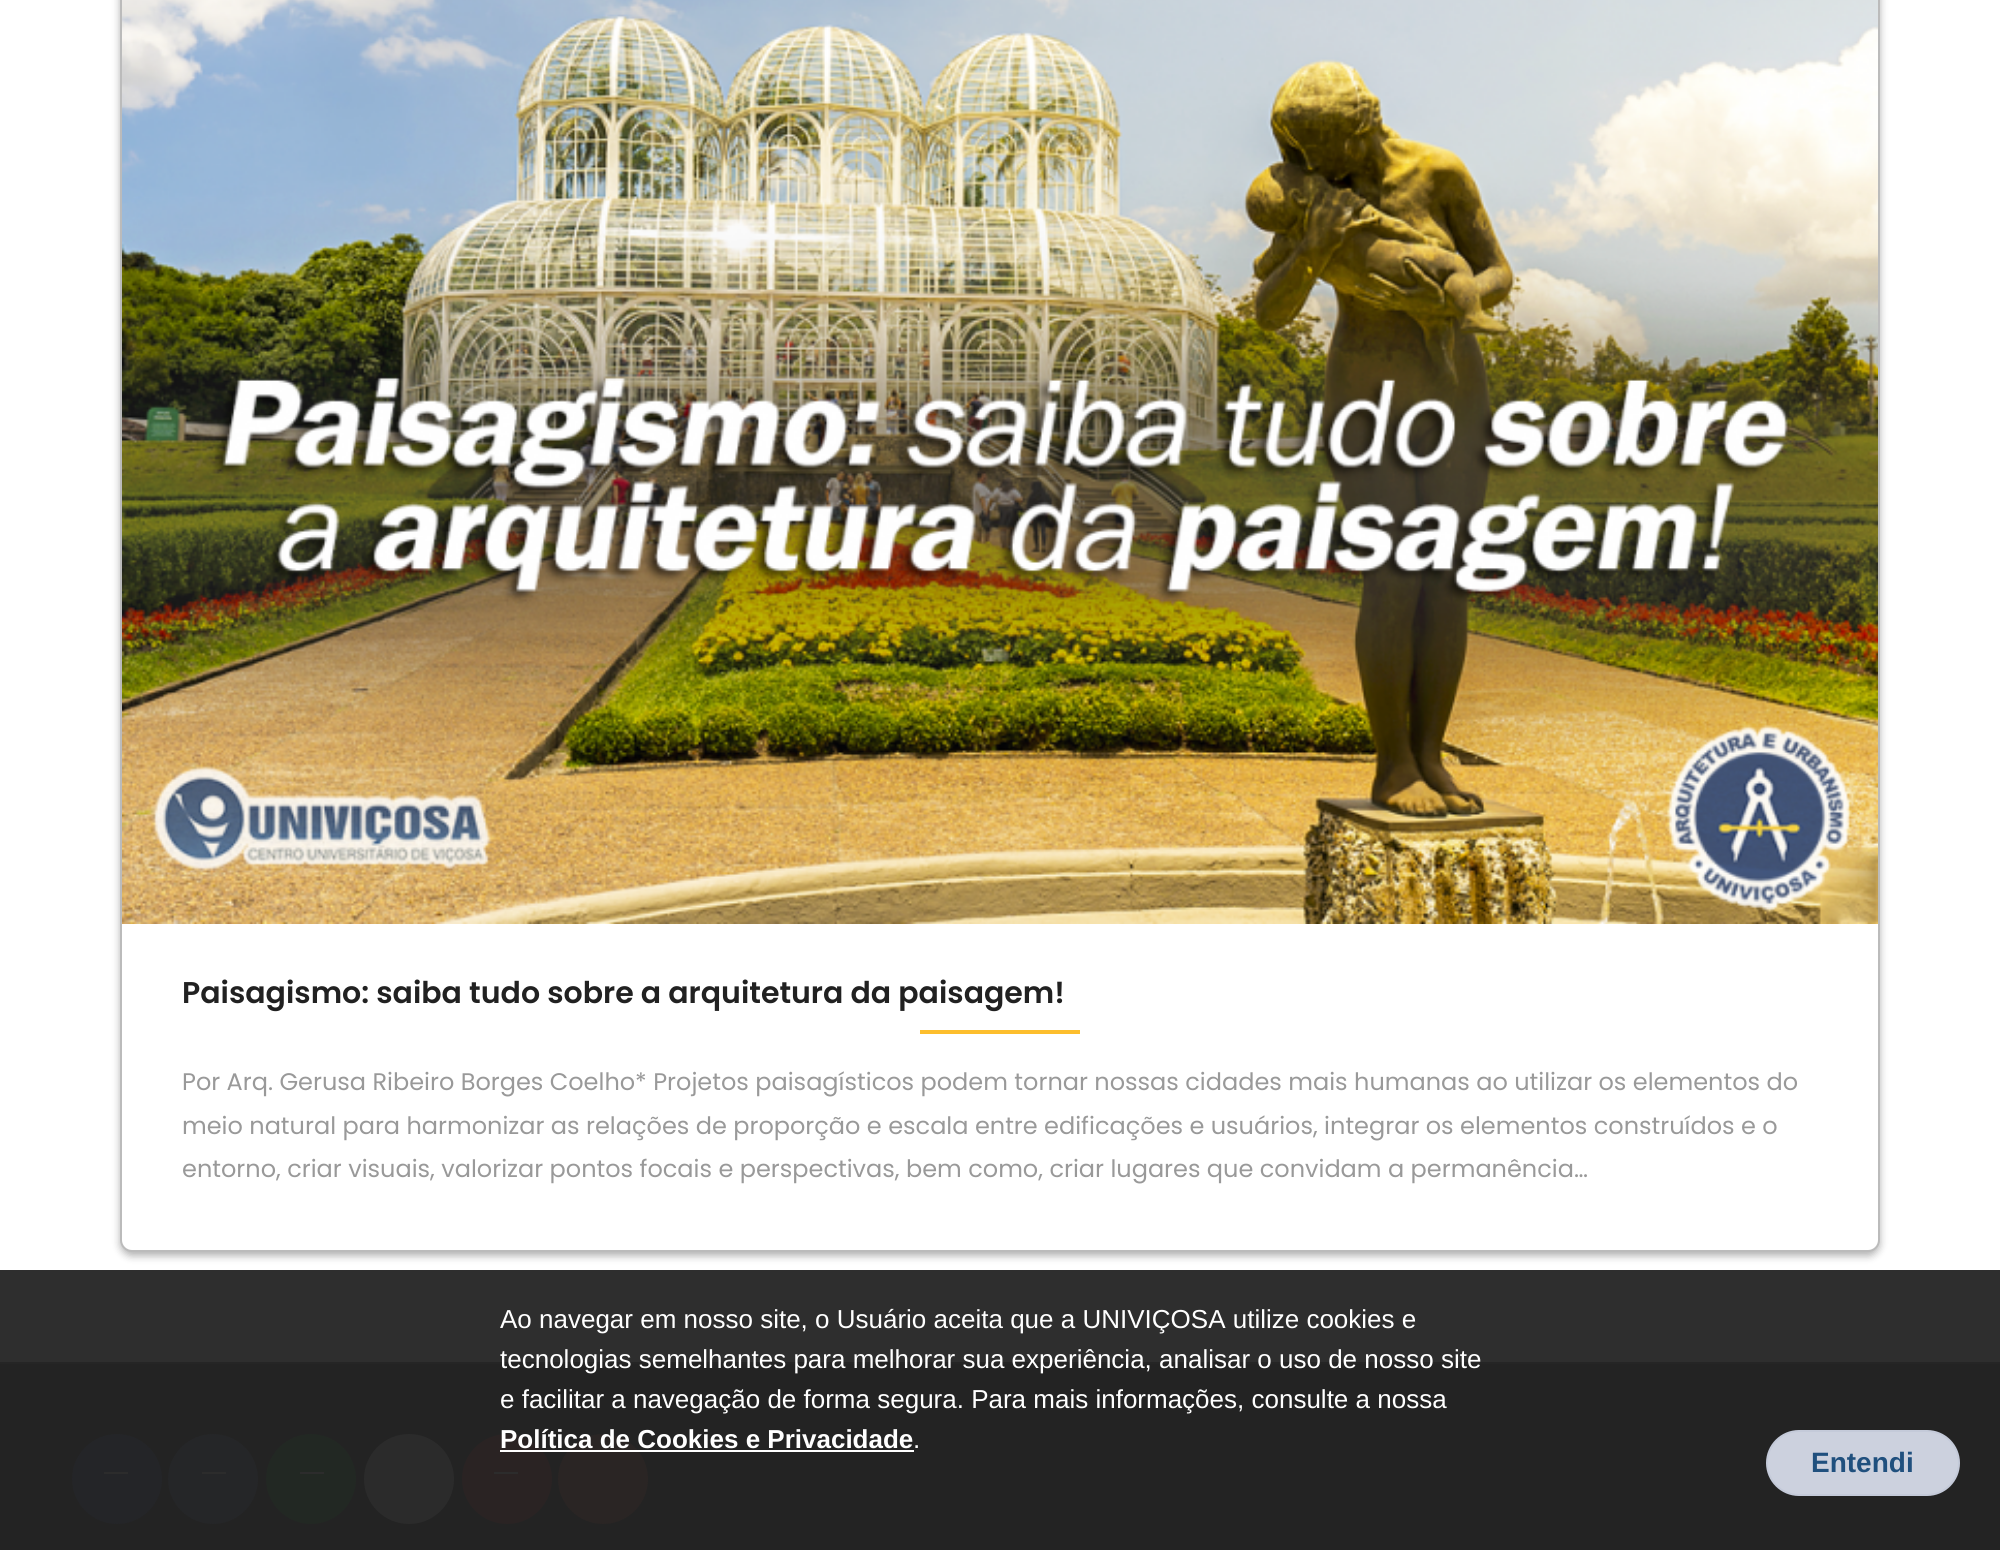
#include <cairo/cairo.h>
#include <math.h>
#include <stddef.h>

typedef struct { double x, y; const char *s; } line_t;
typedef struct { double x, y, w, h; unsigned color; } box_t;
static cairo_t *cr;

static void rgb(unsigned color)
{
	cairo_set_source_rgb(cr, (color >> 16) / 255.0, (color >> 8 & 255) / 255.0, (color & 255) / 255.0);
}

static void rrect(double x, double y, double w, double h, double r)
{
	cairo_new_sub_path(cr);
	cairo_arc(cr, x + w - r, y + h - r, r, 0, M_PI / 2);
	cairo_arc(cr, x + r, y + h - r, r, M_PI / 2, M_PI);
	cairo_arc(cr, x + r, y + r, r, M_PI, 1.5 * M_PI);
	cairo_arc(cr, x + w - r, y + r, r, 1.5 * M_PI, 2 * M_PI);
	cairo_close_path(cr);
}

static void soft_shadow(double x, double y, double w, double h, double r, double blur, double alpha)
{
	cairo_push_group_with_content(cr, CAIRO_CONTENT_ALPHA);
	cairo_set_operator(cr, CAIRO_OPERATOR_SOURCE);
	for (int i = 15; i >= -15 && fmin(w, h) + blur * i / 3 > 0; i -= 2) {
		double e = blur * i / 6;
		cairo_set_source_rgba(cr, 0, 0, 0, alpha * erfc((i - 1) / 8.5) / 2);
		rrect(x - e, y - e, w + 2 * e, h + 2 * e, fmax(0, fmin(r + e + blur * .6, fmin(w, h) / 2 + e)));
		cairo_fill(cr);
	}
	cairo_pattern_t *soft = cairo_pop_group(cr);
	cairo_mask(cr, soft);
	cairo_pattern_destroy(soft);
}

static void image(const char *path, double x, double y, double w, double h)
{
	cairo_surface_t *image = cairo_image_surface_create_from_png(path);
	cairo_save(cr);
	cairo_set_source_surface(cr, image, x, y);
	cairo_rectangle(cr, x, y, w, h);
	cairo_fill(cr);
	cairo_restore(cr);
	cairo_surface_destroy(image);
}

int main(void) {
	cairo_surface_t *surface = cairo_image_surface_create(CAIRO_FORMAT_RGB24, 2000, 1550);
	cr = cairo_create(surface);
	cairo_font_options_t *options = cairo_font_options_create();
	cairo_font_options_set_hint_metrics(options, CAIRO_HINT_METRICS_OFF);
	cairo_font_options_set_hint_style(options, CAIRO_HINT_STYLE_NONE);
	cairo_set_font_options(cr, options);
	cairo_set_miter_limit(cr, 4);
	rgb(0xffffff);
	cairo_paint(cr);
	rgb(0x2e2e2e);
	cairo_rectangle(cr, 0, 1270, 2000, 92);
	cairo_fill(cr);
	rgb(0x000000);
	soft_shadow(120, -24, 1760, 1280, 12, 4, 0.3);
	rgb(0xffffff);
	rrect(121, -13, 1758, 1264, 11);
	cairo_fill_preserve(cr);
	rgb(0xbbbbbb);
	cairo_stroke(cr);
	image("img/1.png", 122, 0, 1756, 924);
	{
		static const box_t items[] = {
			{920, 1030, 160, 4, 0xfdbe2d},
			{0, 1364, 2000, 186, 0x232323},
			{0, 1362, 2000, 2, 0x252525},
		};
		for (size_t i = 0; i < sizeof items / sizeof *items; i++) {
			rgb(items[i].color);
			cairo_rectangle(cr, items[i].x, items[i].y, items[i].w, items[i].h);
			cairo_fill(cr);
		}
	}
	rgb(0x242528);
	cairo_arc(cr, 117, 1479, 45, 0, 2 * M_PI);
	cairo_fill(cr);
	rgb(0x2c2c2c);
	cairo_rectangle(cr, 104, 1472, 24, 2);
	cairo_fill(cr);
	rgb(0x252628);
	cairo_arc(cr, 213, 1479, 45, 0, 2 * M_PI);
	cairo_fill(cr);
	rgb(0x2c2c2c);
	cairo_rectangle(cr, 202, 1472, 24, 2);
	cairo_fill(cr);
	rgb(0x222823);
	cairo_arc(cr, 311, 1479, 45, 0, 2 * M_PI);
	cairo_fill(cr);
	rgb(0x2c2c2c);
	cairo_rectangle(cr, 300, 1472, 24, 2);
	cairo_fill(cr);
	rgb(0x2b2b2b);
	cairo_arc(cr, 409, 1479, 45, 0, 2 * M_PI);
	cairo_fill(cr);
	rgb(0x2a2323);
	cairo_arc(cr, 507, 1479, 45, 0, 2 * M_PI);
	cairo_fill(cr);
	rgb(0x2c2c2c);
	cairo_rectangle(cr, 494, 1472, 24, 2);
	cairo_fill(cr);
	rgb(0x2a2524);
	cairo_arc(cr, 603, 1479, 45, 0, 2 * M_PI);
	cairo_fill(cr);
	rgb(0xffffff);
	cairo_rectangle(cr, 500, 1450, 414, 2);
	cairo_fill(cr);
	rgb(0xccd1de);
	rrect(1767, 1431, 192, 64, 32);
	cairo_fill_preserve(cr);
	rgb(0xc4cad9);
	cairo_stroke(cr);
	cairo_select_font_face(cr, "Poppins SemiBold", CAIRO_FONT_SLANT_NORMAL, CAIRO_FONT_WEIGHT_NORMAL);
	cairo_set_font_size(cr, 30);
	rgb(0x212121);
	cairo_move_to(cr, 182, 1003);
	cairo_show_text(cr, "Paisagismo: saiba tudo sobre a arquitetura da paisagem!");
	cairo_select_font_face(cr, "Poppins", CAIRO_FONT_SLANT_NORMAL, CAIRO_FONT_WEIGHT_NORMAL);
	cairo_set_font_size(cr, 24);
	rgb(0x999999);
	{
		static const line_t items[] = {
			{182, 1090, "Por Arq. Gerusa Ribeiro Borges Coelho* Projetos paisagísticos podem tornar nossas cidades mais humanas ao utilizar os elementos do"},
			{182, 1134, "meio natural para harmonizar as relações de proporção e escala entre edificações e usuários, integrar os elementos construídos e o"},
			{182, 1177, "entorno, criar visuais, valorizar pontos focais e perspectivas, bem como, criar lugares que convidam a permanência…"},
		};
		for (size_t i = 0; i < sizeof items / sizeof *items; i++) {
			cairo_move_to(cr, items[i].x, items[i].y);
			cairo_show_text(cr, items[i].s);
		}
	}
	cairo_select_font_face(cr, "Liberation Sans", CAIRO_FONT_SLANT_NORMAL, CAIRO_FONT_WEIGHT_NORMAL);
	cairo_set_font_size(cr, 26);
	rgb(0xffffff);
	{
		static const line_t items[] = {
			{500, 1328, "Ao navegar em nosso site, o Usuário aceita que a UNIVIÇOSA utilize cookies e"},
			{500, 1368, "tecnologias semelhantes para melhorar sua experiência, analisar o uso de nosso site"},
			{500, 1408, "e facilitar a navegação de forma segura. Para mais informações, consulte a nossa"},
		};
		for (size_t i = 0; i < sizeof items / sizeof *items; i++) {
			cairo_move_to(cr, items[i].x, items[i].y);
			cairo_show_text(cr, items[i].s);
		}
	}
	cairo_select_font_face(cr, "Liberation Sans", CAIRO_FONT_SLANT_NORMAL, CAIRO_FONT_WEIGHT_BOLD);
	cairo_move_to(cr, 500, 1448);
	cairo_show_text(cr, "Política de Cookies e Privacidade");
	cairo_select_font_face(cr, "Liberation Sans", CAIRO_FONT_SLANT_NORMAL, CAIRO_FONT_WEIGHT_NORMAL);
	cairo_move_to(cr, 913, 1448);
	cairo_show_text(cr, ".");
	cairo_select_font_face(cr, "Liberation Sans", CAIRO_FONT_SLANT_NORMAL, CAIRO_FONT_WEIGHT_BOLD);
	cairo_set_font_size(cr, 28);
	rgb(0x20507e);
	cairo_move_to(cr, 1811, 1472);
	cairo_show_text(cr, "Entendi");
	cairo_surface_write_to_png(surface, "page.png");
	cairo_font_options_destroy(options);
	cairo_destroy(cr);
	cairo_surface_destroy(surface);
	return 0;
}
